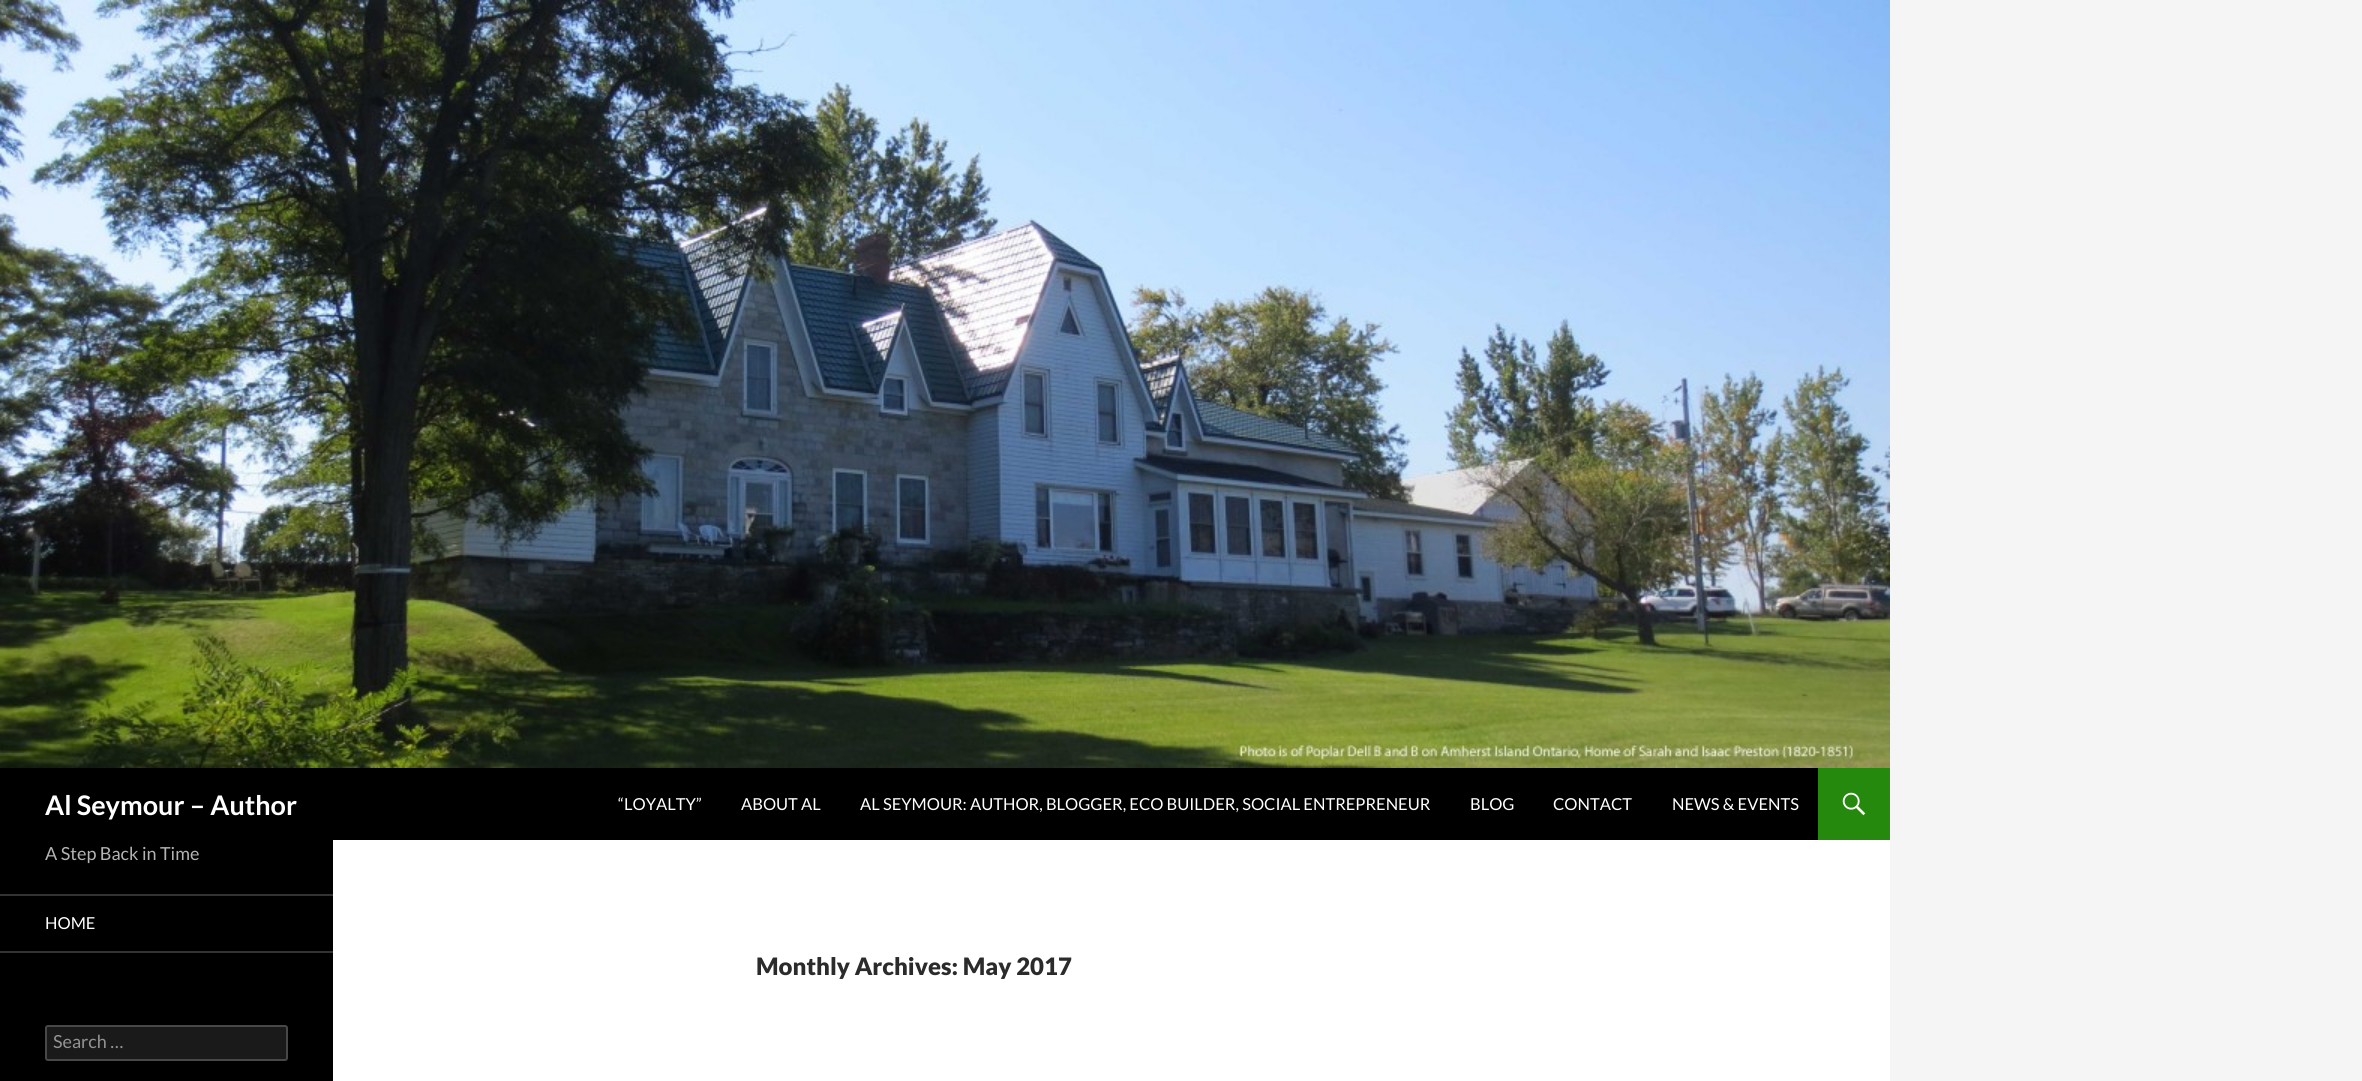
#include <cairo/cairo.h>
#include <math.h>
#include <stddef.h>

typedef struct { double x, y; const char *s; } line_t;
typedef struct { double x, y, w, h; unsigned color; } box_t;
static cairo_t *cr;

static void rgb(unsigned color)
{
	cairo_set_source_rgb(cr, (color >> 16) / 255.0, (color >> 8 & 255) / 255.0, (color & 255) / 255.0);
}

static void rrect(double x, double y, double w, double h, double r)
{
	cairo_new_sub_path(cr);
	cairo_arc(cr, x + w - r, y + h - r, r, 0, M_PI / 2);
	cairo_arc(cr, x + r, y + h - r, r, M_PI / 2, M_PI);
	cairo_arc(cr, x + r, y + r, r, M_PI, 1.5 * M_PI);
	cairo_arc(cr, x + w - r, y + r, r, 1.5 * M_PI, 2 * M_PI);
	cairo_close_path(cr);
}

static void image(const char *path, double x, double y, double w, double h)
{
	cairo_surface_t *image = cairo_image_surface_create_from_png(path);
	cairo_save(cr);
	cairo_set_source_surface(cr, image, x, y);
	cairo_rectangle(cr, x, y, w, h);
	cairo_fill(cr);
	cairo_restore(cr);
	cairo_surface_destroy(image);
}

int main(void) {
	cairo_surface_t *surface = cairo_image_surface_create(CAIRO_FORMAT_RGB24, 2362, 1081);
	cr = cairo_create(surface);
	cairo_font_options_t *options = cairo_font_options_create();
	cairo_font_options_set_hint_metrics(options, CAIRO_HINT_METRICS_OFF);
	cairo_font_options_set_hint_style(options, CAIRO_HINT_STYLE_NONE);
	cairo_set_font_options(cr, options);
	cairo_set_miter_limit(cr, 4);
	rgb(0xf5f5f5);
	cairo_paint(cr);
	rgb(0xffffff);
	cairo_rectangle(cr, 333, 840, 1557, 241);
	cairo_fill(cr);
	image("img/1.png", 0, 0, 1890, 768);
	rgb(0x000000);
	cairo_rectangle(cr, 0, 768, 1818, 72);
	cairo_fill(cr);
	rgb(0x24890d);
	cairo_rectangle(cr, 1818, 768, 72, 72);
	cairo_fill(cr);
	image("img/2.png", 1842, 792, 24, 24);
	{
		static const box_t items[] = {
			{0, 840, 333, 241, 0x000000},
			{0, 951, 333, 2, 0x333333},
			{0, 894, 333, 2, 0x333333},
		};
		for (size_t i = 0; i < sizeof items / sizeof *items; i++) {
			rgb(items[i].color);
			cairo_rectangle(cr, items[i].x, items[i].y, items[i].w, items[i].h);
			cairo_fill(cr);
		}
	}
	rgb(0x1a1a1a);
	rrect(45, 1025, 243, 36, 3);
	cairo_fill(cr);
	rrect(46, 1026, 241, 34, 2);
	cairo_set_source_rgba(cr, 1, 1, 1, 0.2);
	cairo_stroke(cr);
	cairo_select_font_face(cr, "Lato", CAIRO_FONT_SLANT_NORMAL, CAIRO_FONT_WEIGHT_BOLD);
	cairo_set_font_size(cr, 27);
	rgb(0xffffff);
	cairo_move_to(cr, 45, 815);
	cairo_show_text(cr, "Al Seymour – Author");
	cairo_select_font_face(cr, "Lato", CAIRO_FONT_SLANT_NORMAL, CAIRO_FONT_WEIGHT_NORMAL);
	cairo_set_font_size(cr, 16.5);
	{
		static const line_t items[] = {
			{618, 810, "“LOYALTY”"},
			{741, 810, "ABOUT AL"},
			{860, 810, "AL SEYMOUR: AUTHOR, BLOGGER, ECO BUILDER, SOCIAL ENTREPRENEUR"},
			{1470, 810, "BLOG"},
			{1553, 810, "CONTACT"},
			{1672, 810, "NEWS & EVENTS"},
		};
		for (size_t i = 0; i < sizeof items / sizeof *items; i++) {
			cairo_move_to(cr, items[i].x, items[i].y);
			cairo_show_text(cr, items[i].s);
		}
	}
	cairo_set_font_size(cr, 18);
	rgb(0xb3b3b3);
	cairo_move_to(cr, 45, 860);
	cairo_show_text(cr, "A Step Back in Time");
	cairo_set_font_size(cr, 16.5);
	rgb(0xffffff);
	cairo_move_to(cr, 45, 929);
	cairo_show_text(cr, "HOME");
	cairo_set_font_size(cr, 18);
	rgb(0x939393);
	cairo_move_to(cr, 53, 1048);
	cairo_show_text(cr, "Search …");
	cairo_select_font_face(cr, "Lato Black", CAIRO_FONT_SLANT_NORMAL, CAIRO_FONT_WEIGHT_NORMAL);
	cairo_set_font_size(cr, 24);
	rgb(0x2b2b2b);
	cairo_move_to(cr, 756, 975);
	cairo_show_text(cr, "Monthly Archives: May 2017");
	cairo_surface_write_to_png(surface, "page.png");
	cairo_font_options_destroy(options);
	cairo_destroy(cr);
	cairo_surface_destroy(surface);
	return 0;
}
